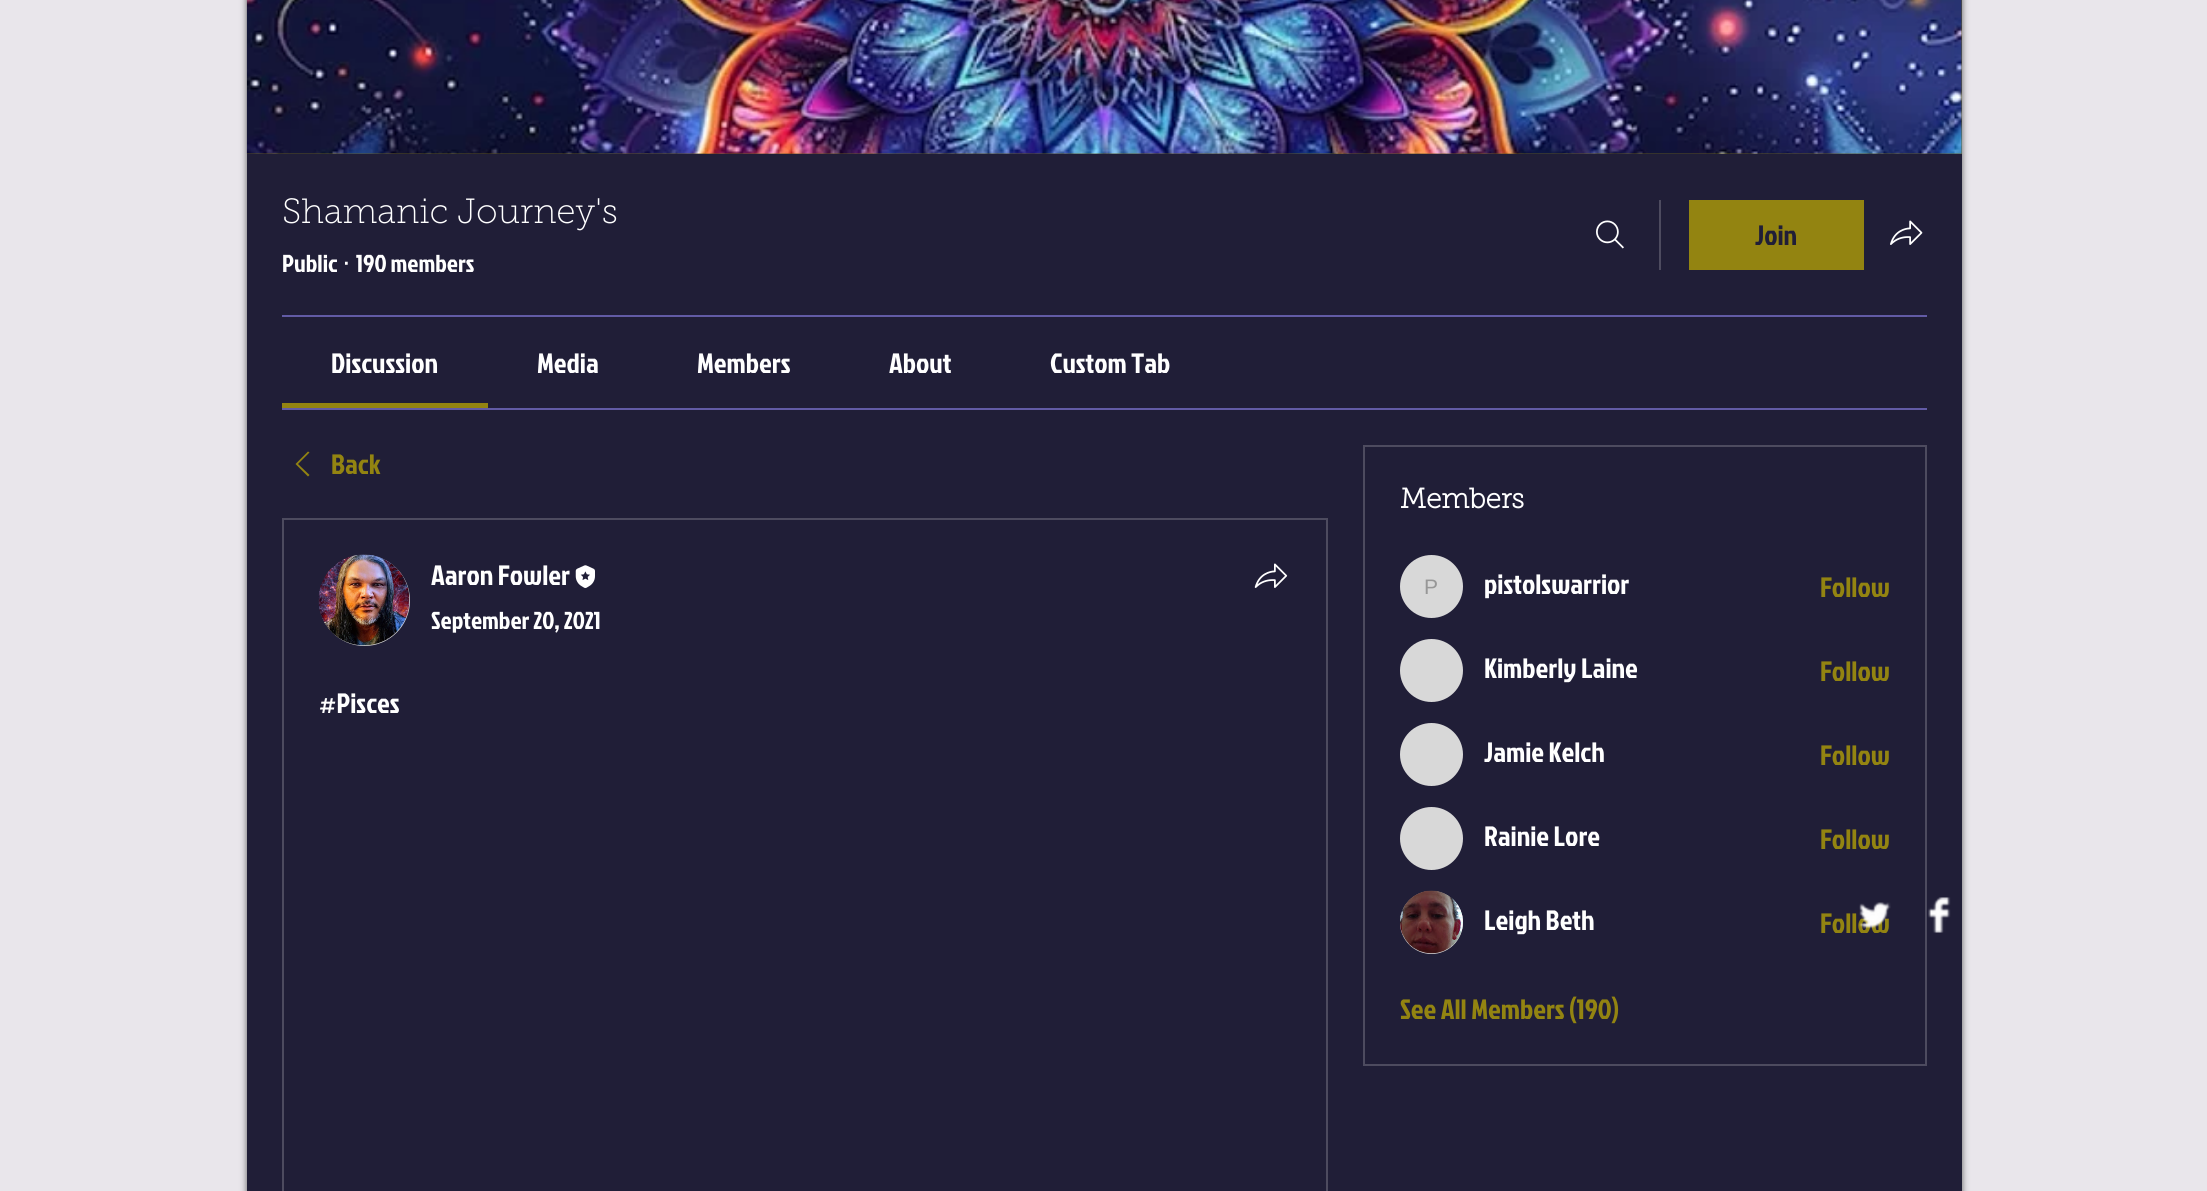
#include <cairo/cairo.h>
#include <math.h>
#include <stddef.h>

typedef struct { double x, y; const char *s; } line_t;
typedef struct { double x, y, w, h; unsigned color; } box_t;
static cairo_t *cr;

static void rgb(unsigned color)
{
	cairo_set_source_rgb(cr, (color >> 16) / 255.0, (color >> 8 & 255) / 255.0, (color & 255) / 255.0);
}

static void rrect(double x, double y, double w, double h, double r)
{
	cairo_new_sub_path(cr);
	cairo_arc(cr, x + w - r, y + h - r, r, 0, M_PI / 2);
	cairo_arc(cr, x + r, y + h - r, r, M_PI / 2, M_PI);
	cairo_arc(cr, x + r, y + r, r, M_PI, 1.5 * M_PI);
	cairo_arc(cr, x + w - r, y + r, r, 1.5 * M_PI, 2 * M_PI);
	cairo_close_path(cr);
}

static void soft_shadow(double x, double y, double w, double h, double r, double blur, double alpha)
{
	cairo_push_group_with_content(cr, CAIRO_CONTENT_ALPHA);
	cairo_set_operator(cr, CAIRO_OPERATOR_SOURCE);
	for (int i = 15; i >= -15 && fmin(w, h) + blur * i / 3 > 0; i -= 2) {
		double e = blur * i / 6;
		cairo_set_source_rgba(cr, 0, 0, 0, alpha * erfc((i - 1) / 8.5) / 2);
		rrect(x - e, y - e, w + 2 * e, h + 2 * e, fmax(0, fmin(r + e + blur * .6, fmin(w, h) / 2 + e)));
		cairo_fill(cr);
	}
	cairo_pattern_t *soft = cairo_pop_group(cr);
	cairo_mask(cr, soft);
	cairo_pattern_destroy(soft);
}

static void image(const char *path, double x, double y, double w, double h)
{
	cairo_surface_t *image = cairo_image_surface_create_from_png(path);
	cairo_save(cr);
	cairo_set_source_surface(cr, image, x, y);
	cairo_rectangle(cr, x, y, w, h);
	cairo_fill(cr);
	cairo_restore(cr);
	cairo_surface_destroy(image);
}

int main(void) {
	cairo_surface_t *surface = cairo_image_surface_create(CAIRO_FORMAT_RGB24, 2207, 1191);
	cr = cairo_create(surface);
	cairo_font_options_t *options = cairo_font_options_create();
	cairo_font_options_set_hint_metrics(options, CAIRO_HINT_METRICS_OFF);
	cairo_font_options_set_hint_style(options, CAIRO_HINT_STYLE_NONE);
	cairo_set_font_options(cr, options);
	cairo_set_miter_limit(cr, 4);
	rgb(0xe9e6eb);
	cairo_paint(cr);
	rgb(0x000000);
	soft_shadow(247, -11, 1715, 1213, 0, 3.5, 0.6);
	rgb(0x201e37);
	cairo_rectangle(cr, 247, 154, 1715, 1037);
	cairo_fill(cr);
	rgb(0x655b20);
	cairo_rectangle(cr, 247, 0, 1715, 154);
	cairo_fill(cr);
	image("img/1.png", 246, 0, 1716, 154);
	image("img/2.png", 1596, 220, 28, 29);
	rgb(0x4d4b5f);
	cairo_rectangle(cr, 1659, 200, 2, 70);
	cairo_fill(cr);
	rgb(0x938411);
	cairo_rectangle(cr, 1689, 200, 175, 70);
	cairo_fill(cr);
	image("img/3.png", 1890, 220, 33, 25);
	{
		static const box_t items[] = {
			{282, 315, 1645, 2, 0x625ba5},
			{282, 408, 1645, 2, 0x625ba5},
			{282, 403, 206, 5, 0x938411},
		};
		for (size_t i = 0; i < sizeof items / sizeof *items; i++) {
			rgb(items[i].color);
			cairo_rectangle(cr, items[i].x, items[i].y, items[i].w, items[i].h);
			cairo_fill(cr);
		}
	}
	cairo_set_fill_rule(cr, CAIRO_FILL_RULE_EVEN_ODD);
	cairo_new_path(cr);
	cairo_move_to(cr, 308, 451.5);
	cairo_line_to(cr, 309.5, 452.5);
	cairo_line_to(cr, 298, 464);
	cairo_line_to(cr, 309.5, 475);
	cairo_line_to(cr, 308, 476.5);
	cairo_line_to(cr, 295.5, 464);
	cairo_close_path(cr);
	cairo_fill(cr);
	cairo_rectangle(cr, 283, 519, 1044, 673);
	rgb(0x4d4b5f);
	cairo_stroke(cr);
	rgb(0xd8d8d8);
	cairo_arc(cr, 364.5, 600.5, 45.5, 0, 2 * M_PI);
	cairo_fill(cr);
	image("img/4.png", 318, 554, 92, 92);
	image("img/5.png", 575, 565, 20, 23);
	image("img/6.png", 1254, 563, 34, 25);
	cairo_rectangle(cr, 1364, 446, 562, 619);
	rgb(0x4d4b5f);
	cairo_stroke(cr);
	rgb(0xd8d8d8);
	cairo_arc(cr, 1431.5, 586.5, 31.5, 0, 2 * M_PI);
	cairo_fill(cr);
	cairo_arc(cr, 1431.5, 670.5, 31.5, 0, 2 * M_PI);
	cairo_fill(cr);
	cairo_arc(cr, 1431.5, 754.5, 31.5, 0, 2 * M_PI);
	cairo_fill(cr);
	cairo_arc(cr, 1431.5, 838.5, 31.5, 0, 2 * M_PI);
	cairo_fill(cr);
	cairo_arc(cr, 1431.5, 922.5, 31.5, 0, 2 * M_PI);
	cairo_fill(cr);
	image("img/7.png", 1400, 890, 63, 64);
	image("img/9.png", 1928, 897, 23, 36);
	cairo_select_font_face(cr, "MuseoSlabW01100 Thin", CAIRO_FONT_SLANT_NORMAL, CAIRO_FONT_WEIGHT_NORMAL);
	cairo_set_font_size(cr, 35);
	rgb(0xffffff);
	cairo_move_to(cr, 282, 223);
	cairo_show_text(cr, "Shamanic Journey's");
	cairo_select_font_face(cr, "Jockey One", CAIRO_FONT_SLANT_NORMAL, CAIRO_FONT_WEIGHT_NORMAL);
	cairo_set_font_size(cr, 24.5);
	{
		static const line_t items[] = {
			{282, 272, "Public"},
			{344, 272, "·"},
			{356, 272, "190 members"},
		};
		for (size_t i = 0; i < sizeof items / sizeof *items; i++) {
			cairo_move_to(cr, items[i].x, items[i].y);
			cairo_show_text(cr, items[i].s);
		}
	}
	cairo_set_font_size(cr, 28);
	rgb(0x201e37);
	cairo_move_to(cr, 1755, 245);
	cairo_show_text(cr, "Join");
	rgb(0xffffff);
	{
		static const line_t items[] = {
			{331, 373, "Discussion"},
			{537, 373, "Media"},
			{697, 373, "Members"},
			{889, 373, "About"},
			{1050, 373, "Custom Tab"},
		};
		for (size_t i = 0; i < sizeof items / sizeof *items; i++) {
			cairo_move_to(cr, items[i].x, items[i].y);
			cairo_show_text(cr, items[i].s);
		}
	}
	rgb(0x938411);
	cairo_move_to(cr, 331, 474);
	cairo_show_text(cr, "Back");
	rgb(0xffffff);
	cairo_move_to(cr, 431, 585);
	cairo_show_text(cr, "Aaron Fowler");
	cairo_set_font_size(cr, 24.5);
	cairo_move_to(cr, 431, 629);
	cairo_show_text(cr, "September 20, 2021");
	cairo_set_font_size(cr, 28);
	cairo_move_to(cr, 319, 713);
	cairo_show_text(cr, "#Pisces");
	cairo_select_font_face(cr, "MuseoSlabW01100", CAIRO_FONT_SLANT_NORMAL, CAIRO_FONT_WEIGHT_BOLD);
	cairo_move_to(cr, 1400, 508);
	cairo_show_text(cr, "Members");
	cairo_select_font_face(cr, "Liberation Sans", CAIRO_FONT_SLANT_NORMAL, CAIRO_FONT_WEIGHT_NORMAL);
	cairo_set_font_size(cr, 21);
	rgb(0x979797);
	cairo_move_to(cr, 1424, 594);
	cairo_show_text(cr, "P");
	cairo_select_font_face(cr, "Jockey One", CAIRO_FONT_SLANT_NORMAL, CAIRO_FONT_WEIGHT_NORMAL);
	cairo_set_font_size(cr, 28);
	rgb(0xffffff);
	cairo_move_to(cr, 1484, 594);
	cairo_show_text(cr, "pistolswarrior");
	rgb(0x938411);
	cairo_move_to(cr, 1820, 597);
	cairo_show_text(cr, "Follow");
	rgb(0xffffff);
	cairo_move_to(cr, 1484, 678);
	cairo_show_text(cr, "Kimberly Laine");
	rgb(0x938411);
	cairo_move_to(cr, 1820, 681);
	cairo_show_text(cr, "Follow");
	rgb(0xffffff);
	cairo_move_to(cr, 1484, 762);
	cairo_show_text(cr, "Jamie Kelch");
	rgb(0x938411);
	cairo_move_to(cr, 1820, 765);
	cairo_show_text(cr, "Follow");
	rgb(0xffffff);
	cairo_move_to(cr, 1484, 846);
	cairo_show_text(cr, "Rainie Lore");
	rgb(0x938411);
	cairo_move_to(cr, 1820, 849);
	cairo_show_text(cr, "Follow");
	rgb(0xffffff);
	cairo_move_to(cr, 1484, 930);
	cairo_show_text(cr, "Leigh Beth");
	rgb(0x938411);
	cairo_move_to(cr, 1820, 933);
	cairo_show_text(cr, "Follow");
	cairo_move_to(cr, 1400, 1019);
	cairo_show_text(cr, "See All Members (190)");
	image("img/8.png", 1859, 902, 32, 27);
	cairo_surface_write_to_png(surface, "page.png");
	cairo_font_options_destroy(options);
	cairo_destroy(cr);
	cairo_surface_destroy(surface);
	return 0;
}
